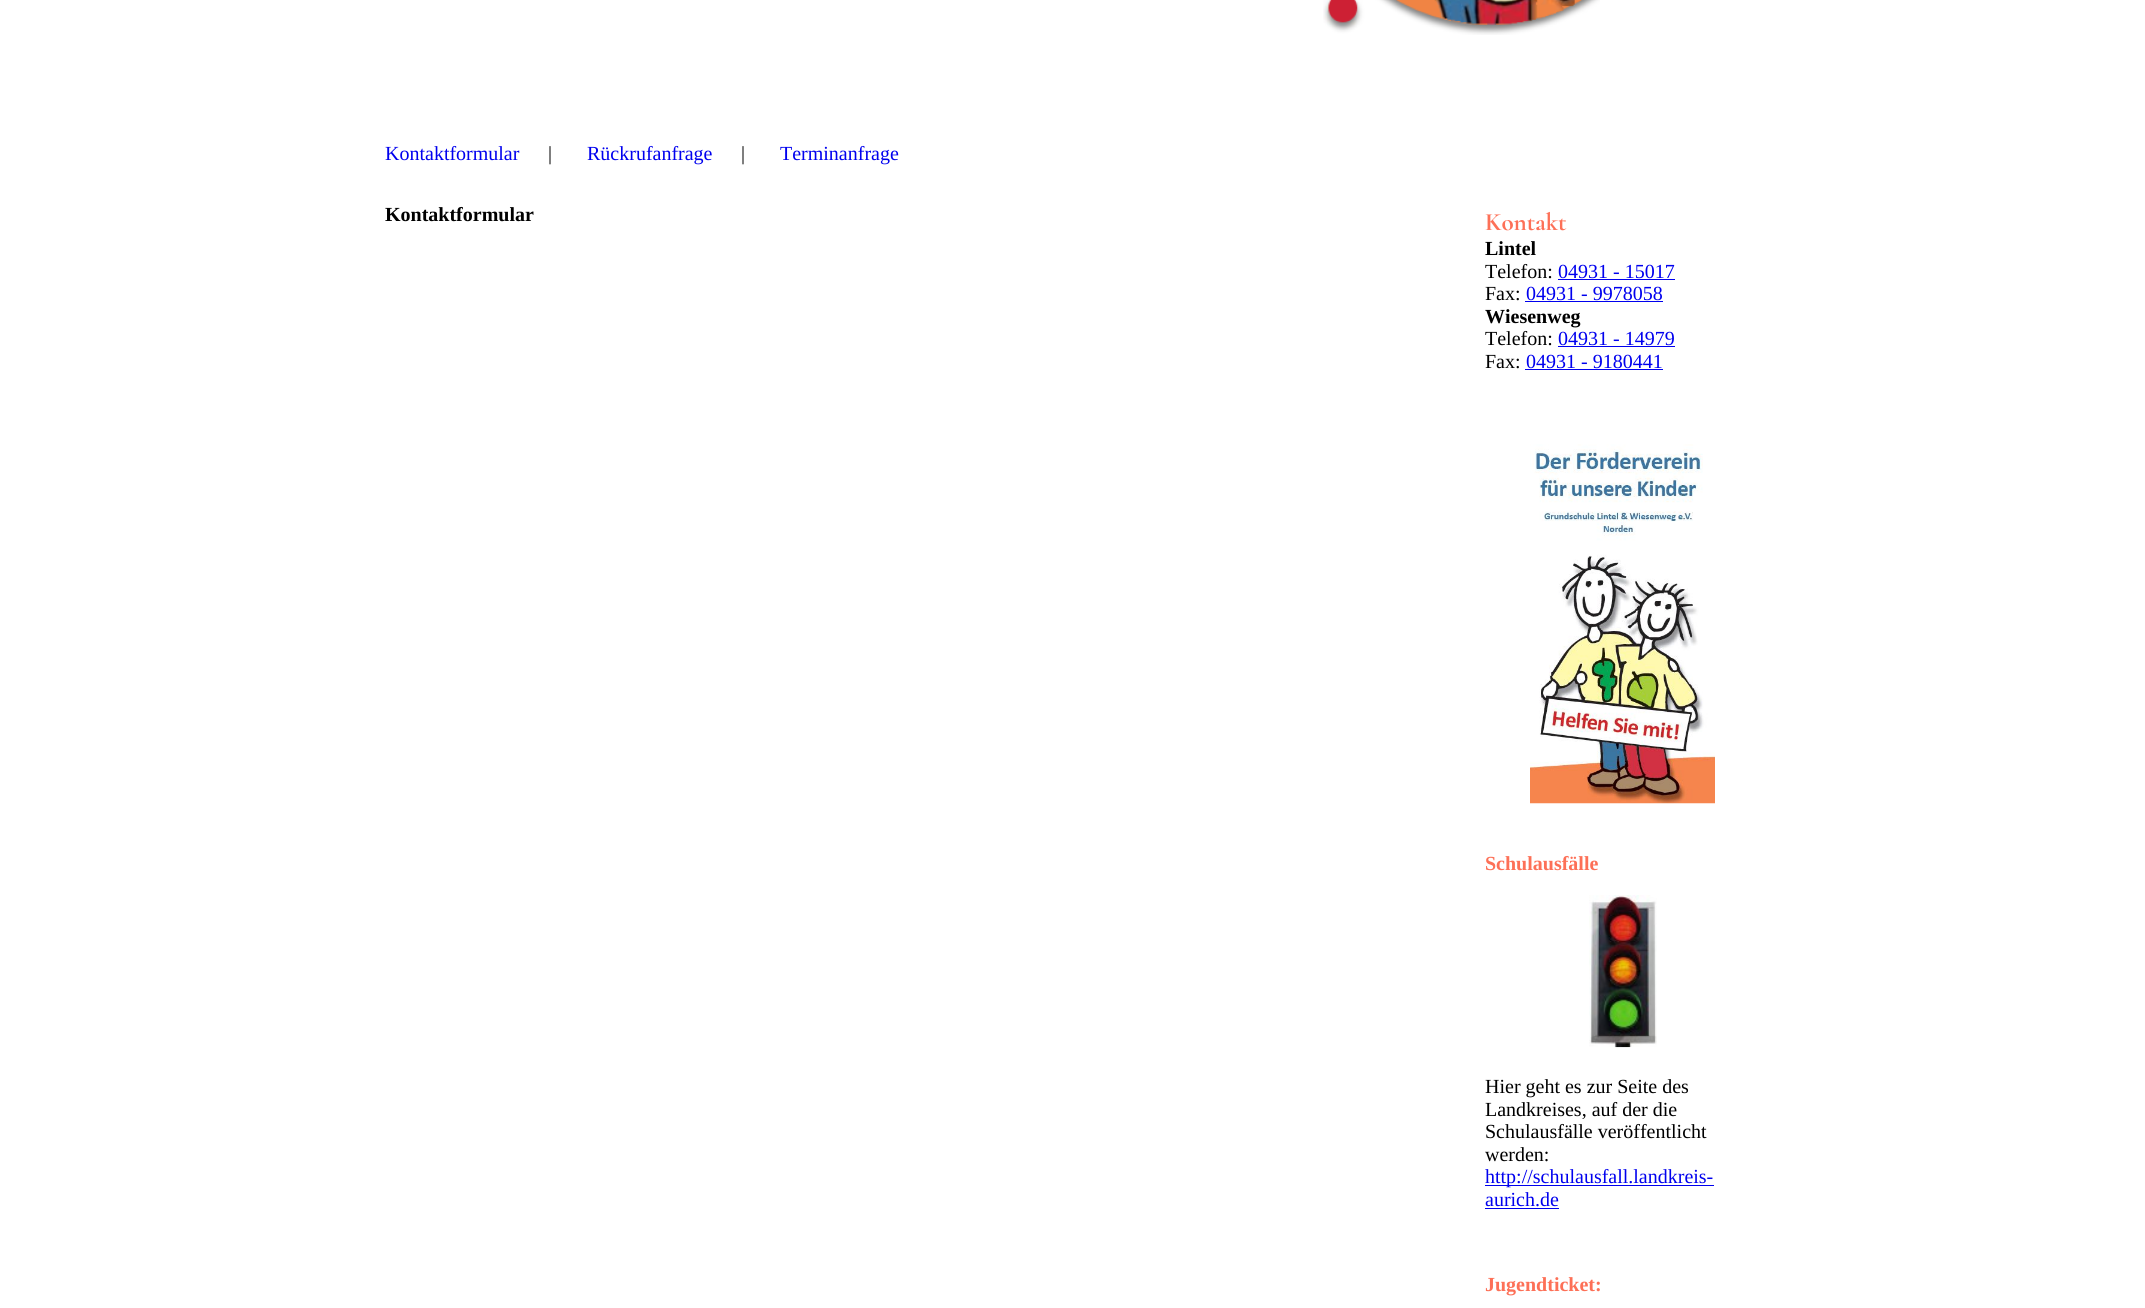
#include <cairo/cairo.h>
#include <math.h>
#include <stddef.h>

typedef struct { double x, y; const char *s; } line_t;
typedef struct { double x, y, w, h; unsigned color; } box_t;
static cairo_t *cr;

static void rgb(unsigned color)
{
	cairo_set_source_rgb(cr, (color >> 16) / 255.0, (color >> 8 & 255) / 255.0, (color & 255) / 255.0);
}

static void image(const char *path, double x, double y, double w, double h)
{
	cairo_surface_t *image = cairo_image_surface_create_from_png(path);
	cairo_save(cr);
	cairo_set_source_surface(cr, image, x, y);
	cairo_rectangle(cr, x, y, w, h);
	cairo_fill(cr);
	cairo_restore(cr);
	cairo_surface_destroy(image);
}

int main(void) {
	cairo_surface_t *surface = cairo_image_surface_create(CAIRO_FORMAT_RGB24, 2145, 1308);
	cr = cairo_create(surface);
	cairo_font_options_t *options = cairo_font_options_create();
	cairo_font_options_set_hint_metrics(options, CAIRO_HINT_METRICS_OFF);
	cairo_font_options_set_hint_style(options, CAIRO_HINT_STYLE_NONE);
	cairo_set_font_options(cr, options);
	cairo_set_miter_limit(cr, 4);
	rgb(0xffffff);
	cairo_paint(cr);
	image("img/1.png", 1323, 0, 277, 35);
	{
		static const box_t items[] = {
			{1558, 279, 117, 1, 0x0000ee},
			{1525, 301, 138, 1, 0x0000ee},
			{1558, 346, 117, 1, 0x0000ee},
			{1525, 369, 138, 1, 0x0000ee},
		};
		for (size_t i = 0; i < sizeof items / sizeof *items; i++) {
			rgb(items[i].color);
			cairo_rectangle(cr, items[i].x, items[i].y, items[i].w, items[i].h);
			cairo_fill(cr);
		}
	}
	image("img/2.png", 1530, 444, 185, 360);
	image("img/3.png", 1589, 895, 68, 153);
	cairo_rectangle(cr, 1485, 1185, 229, 1);
	cairo_fill(cr);
	cairo_rectangle(cr, 1485, 1208, 74, 1);
	cairo_fill(cr);
	cairo_select_font_face(cr, "Liberation Serif", CAIRO_FONT_SLANT_NORMAL, CAIRO_FONT_WEIGHT_NORMAL);
	cairo_set_font_size(cr, 20);
	cairo_move_to(cr, 385, 160);
	cairo_show_text(cr, "Kontaktformular");
	rgb(0x000000);
	cairo_move_to(cr, 548, 160);
	cairo_show_text(cr, "|");
	rgb(0x0000ee);
	cairo_move_to(cr, 587, 160);
	cairo_show_text(cr, "Rückrufanfrage");
	rgb(0x000000);
	cairo_move_to(cr, 741, 160);
	cairo_show_text(cr, "|");
	rgb(0x0000ee);
	cairo_move_to(cr, 780, 160);
	cairo_show_text(cr, "Terminanfrage");
	cairo_select_font_face(cr, "Liberation Serif", CAIRO_FONT_SLANT_NORMAL, CAIRO_FONT_WEIGHT_BOLD);
	rgb(0x000000);
	cairo_move_to(cr, 385, 221);
	cairo_show_text(cr, "Kontaktformular");
	cairo_select_font_face(cr, "Cormorant", CAIRO_FONT_SLANT_NORMAL, CAIRO_FONT_WEIGHT_BOLD);
	cairo_set_font_size(cr, 25);
	rgb(0xfd7057);
	cairo_move_to(cr, 1485, 230);
	cairo_show_text(cr, "Kontakt");
	cairo_select_font_face(cr, "Liberation Serif", CAIRO_FONT_SLANT_NORMAL, CAIRO_FONT_WEIGHT_BOLD);
	cairo_set_font_size(cr, 20);
	rgb(0x000000);
	cairo_move_to(cr, 1485, 255);
	cairo_show_text(cr, "Lintel");
	cairo_select_font_face(cr, "Liberation Serif", CAIRO_FONT_SLANT_NORMAL, CAIRO_FONT_WEIGHT_NORMAL);
	cairo_move_to(cr, 1485, 278);
	cairo_show_text(cr, "Telefon:");
	rgb(0x0000ee);
	cairo_move_to(cr, 1558, 278);
	cairo_show_text(cr, "04931 - 15017");
	rgb(0x000000);
	cairo_move_to(cr, 1485, 300);
	cairo_show_text(cr, "Fax:");
	rgb(0x0000ee);
	cairo_move_to(cr, 1526, 300);
	cairo_show_text(cr, "04931 - 9978058");
	cairo_select_font_face(cr, "Liberation Serif", CAIRO_FONT_SLANT_NORMAL, CAIRO_FONT_WEIGHT_BOLD);
	rgb(0x000000);
	cairo_move_to(cr, 1485, 323);
	cairo_show_text(cr, "Wiesenweg");
	cairo_select_font_face(cr, "Liberation Serif", CAIRO_FONT_SLANT_NORMAL, CAIRO_FONT_WEIGHT_NORMAL);
	cairo_move_to(cr, 1485, 345);
	cairo_show_text(cr, "Telefon:");
	rgb(0x0000ee);
	cairo_move_to(cr, 1558, 345);
	cairo_show_text(cr, "04931 - 14979");
	rgb(0x000000);
	cairo_move_to(cr, 1485, 368);
	cairo_show_text(cr, "Fax:");
	rgb(0x0000ee);
	cairo_move_to(cr, 1526, 368);
	cairo_show_text(cr, "04931 - 9180441");
	cairo_select_font_face(cr, "Liberation Serif", CAIRO_FONT_SLANT_NORMAL, CAIRO_FONT_WEIGHT_BOLD);
	rgb(0xfd7057);
	cairo_move_to(cr, 1485, 870);
	cairo_show_text(cr, "Schulausfälle");
	cairo_select_font_face(cr, "Liberation Serif", CAIRO_FONT_SLANT_NORMAL, CAIRO_FONT_WEIGHT_NORMAL);
	rgb(0x000000);
	{
		static const line_t items[] = {
			{1485, 1093, "Hier geht es zur Seite des"},
			{1485, 1116, "Landkreises, auf der die"},
			{1485, 1138, "Schulausfälle veröffentlicht"},
			{1485, 1161, "werden:"},
		};
		for (size_t i = 0; i < sizeof items / sizeof *items; i++) {
			cairo_move_to(cr, items[i].x, items[i].y);
			cairo_show_text(cr, items[i].s);
		}
	}
	rgb(0x0000ee);
	cairo_move_to(cr, 1485, 1183);
	cairo_show_text(cr, "http://schulausfall.landkreis-");
	cairo_move_to(cr, 1485, 1206);
	cairo_show_text(cr, "aurich.de");
	cairo_select_font_face(cr, "Liberation Serif", CAIRO_FONT_SLANT_NORMAL, CAIRO_FONT_WEIGHT_BOLD);
	rgb(0xfd7057);
	cairo_move_to(cr, 1485, 1291);
	cairo_show_text(cr, "Jugendticket:");
	cairo_surface_write_to_png(surface, "page.png");
	cairo_font_options_destroy(options);
	cairo_destroy(cr);
	cairo_surface_destroy(surface);
	return 0;
}
